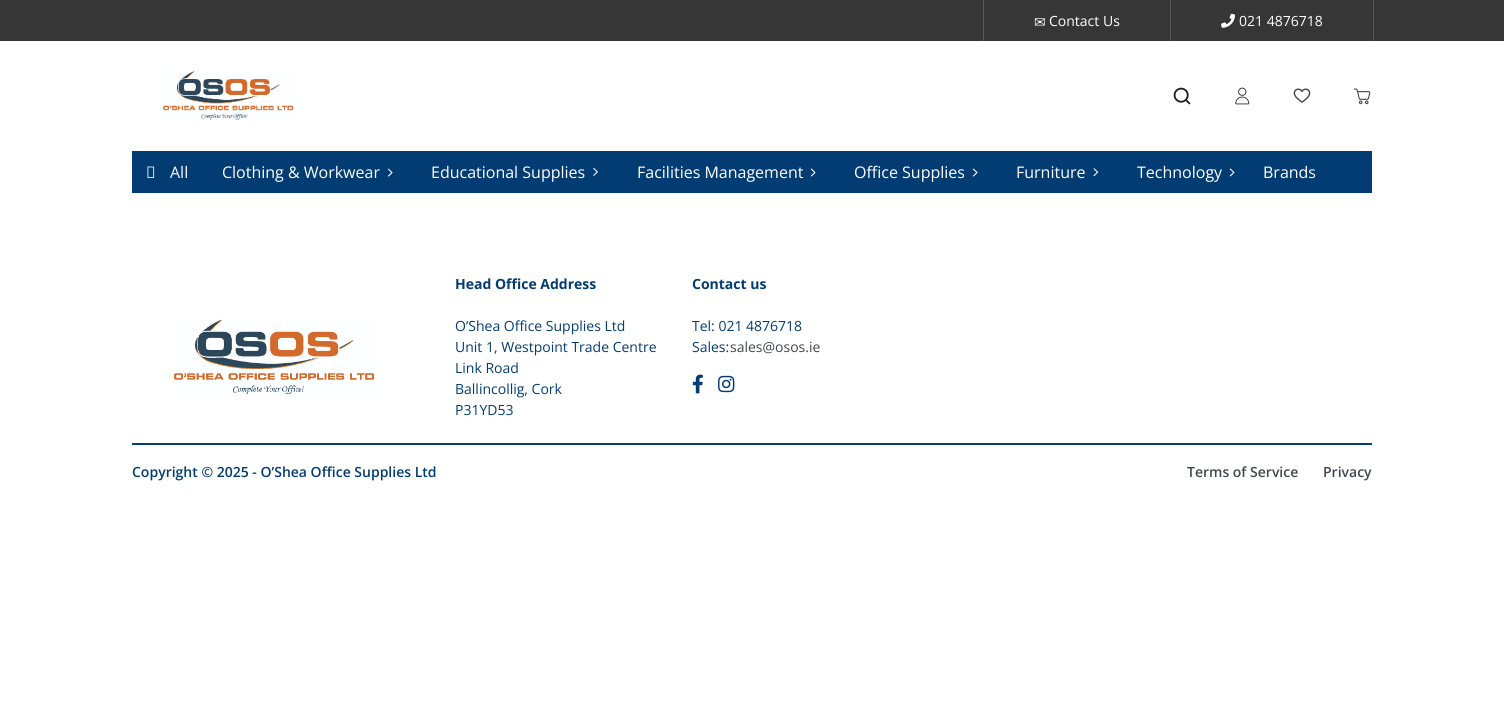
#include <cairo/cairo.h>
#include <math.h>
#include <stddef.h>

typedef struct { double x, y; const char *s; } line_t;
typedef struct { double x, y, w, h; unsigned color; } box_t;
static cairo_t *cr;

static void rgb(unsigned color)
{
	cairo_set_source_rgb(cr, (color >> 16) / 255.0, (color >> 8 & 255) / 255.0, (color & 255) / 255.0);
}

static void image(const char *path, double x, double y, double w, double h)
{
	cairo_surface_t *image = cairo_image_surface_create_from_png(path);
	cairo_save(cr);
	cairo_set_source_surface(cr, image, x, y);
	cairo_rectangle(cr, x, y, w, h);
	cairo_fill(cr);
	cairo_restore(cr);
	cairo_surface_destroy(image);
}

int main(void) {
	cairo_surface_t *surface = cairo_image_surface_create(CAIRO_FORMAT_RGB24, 1504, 714);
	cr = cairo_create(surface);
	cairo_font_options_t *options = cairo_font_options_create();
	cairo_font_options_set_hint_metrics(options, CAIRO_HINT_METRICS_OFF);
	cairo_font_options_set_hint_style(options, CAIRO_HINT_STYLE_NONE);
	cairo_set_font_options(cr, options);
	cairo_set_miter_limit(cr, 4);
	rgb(0xffffff);
	cairo_paint(cr);
	{
		static const box_t items[] = {
			{0, 0, 1504, 41, 0x363636},
			{1170, 0, 1, 41, 0x565656},
			{983, 0, 1, 41, 0x565656},
			{1373, 0, 1, 41, 0x565656},
		};
		for (size_t i = 0; i < sizeof items / sizeof *items; i++) {
			rgb(items[i].color);
			cairo_rectangle(cr, items[i].x, items[i].y, items[i].w, items[i].h);
			cairo_fill(cr);
		}
	}
	image("img/1.png", 1221, 13, 14, 15);
	image("img/2.png", 162, 70, 132, 50);
	image("img/3.png", 1173, 87, 18, 18);
	image("img/4.png", 1235, 87, 15, 18);
	image("img/5.png", 1293, 88, 18, 15);
	image("img/6.png", 1353, 88, 18, 17);
	rgb(0x033c73);
	cairo_rectangle(cr, 132, 151, 1240, 42);
	cairo_fill(cr);
	image("img/7.png", 147, 166, 8, 12);
	image("img/8.png", 387, 168, 6, 9);
	image("img/9.png", 593, 168, 5, 8);
	image("img/10.png", 810, 168, 6, 9);
	image("img/11.png", 972, 168, 6, 9);
	image("img/12.png", 1093, 168, 6, 9);
	image("img/13.png", 1229, 168, 6, 9);
	cairo_rectangle(cr, 132, 443, 1240, 2);
	cairo_fill(cr);
	image("img/14.png", 174, 319, 201, 76);
	image("img/15.png", 692, 374, 11, 20);
	image("img/16.png", 718, 375, 17, 18);
	cairo_select_font_face(cr, "DejaVu Sans", CAIRO_FONT_SLANT_NORMAL, CAIRO_FONT_WEIGHT_NORMAL);
	cairo_set_font_size(cr, 14);
	rgb(0xffffff);
	cairo_move_to(cr, 1034, 27);
	cairo_show_text(cr, "✉");
	cairo_select_font_face(cr, "Open Sans", CAIRO_FONT_SLANT_NORMAL, CAIRO_FONT_WEIGHT_NORMAL);
	cairo_move_to(cr, 1049, 26);
	cairo_show_text(cr, "Contact Us");
	cairo_move_to(cr, 1239, 26);
	cairo_show_text(cr, "021 4876718");
	cairo_set_font_size(cr, 16);
	{
		static const line_t items[] = {
			{170, 178, "All"},
			{222, 178, "Clothing & Workwear"},
			{431, 178, "Educational Supplies"},
			{637, 178, "Facilities Management"},
			{854, 178, "Office Supplies"},
			{1016, 178, "Furniture"},
			{1137, 178, "Technology"},
			{1263, 178, "Brands"},
		};
		for (size_t i = 0; i < sizeof items / sizeof *items; i++) {
			cairo_move_to(cr, items[i].x, items[i].y);
			cairo_show_text(cr, items[i].s);
		}
	}
	cairo_select_font_face(cr, "Open Sans", CAIRO_FONT_SLANT_NORMAL, CAIRO_FONT_WEIGHT_BOLD);
	cairo_set_font_size(cr, 14);
	rgb(0x033c73);
	cairo_move_to(cr, 455, 289);
	cairo_show_text(cr, "Head Office Address");
	cairo_select_font_face(cr, "Open Sans", CAIRO_FONT_SLANT_NORMAL, CAIRO_FONT_WEIGHT_NORMAL);
	{
		static const line_t items[] = {
			{455, 331, "O’Shea Office Supplies Ltd"},
			{455, 352, "Unit 1, Westpoint Trade Centre"},
			{455, 373, "Link Road"},
			{455, 394, "Ballincollig, Cork"},
			{455, 415, "P31YD53"},
		};
		for (size_t i = 0; i < sizeof items / sizeof *items; i++) {
			cairo_move_to(cr, items[i].x, items[i].y);
			cairo_show_text(cr, items[i].s);
		}
	}
	cairo_select_font_face(cr, "Open Sans", CAIRO_FONT_SLANT_NORMAL, CAIRO_FONT_WEIGHT_BOLD);
	cairo_move_to(cr, 692, 289);
	cairo_show_text(cr, "Contact us");
	cairo_select_font_face(cr, "Open Sans", CAIRO_FONT_SLANT_NORMAL, CAIRO_FONT_WEIGHT_NORMAL);
	cairo_move_to(cr, 692, 331);
	cairo_show_text(cr, "Tel: 021 4876718");
	cairo_move_to(cr, 692, 352);
	cairo_show_text(cr, "Sales:");
	rgb(0x43464e);
	cairo_move_to(cr, 730, 352);
	cairo_show_text(cr, "sales@osos.ie");
	cairo_select_font_face(cr, "Open Sans SemiBold", CAIRO_FONT_SLANT_NORMAL, CAIRO_FONT_WEIGHT_NORMAL);
	rgb(0x033c73);
	cairo_move_to(cr, 132, 477);
	cairo_show_text(cr, "Copyright © 2025 - O’Shea Office Supplies Ltd");
	rgb(0x43464e);
	cairo_move_to(cr, 1187, 477);
	cairo_show_text(cr, "Terms of Service");
	cairo_move_to(cr, 1323, 477);
	cairo_show_text(cr, "Privacy");
	cairo_surface_write_to_png(surface, "page.png");
	cairo_font_options_destroy(options);
	cairo_destroy(cr);
	cairo_surface_destroy(surface);
	return 0;
}
